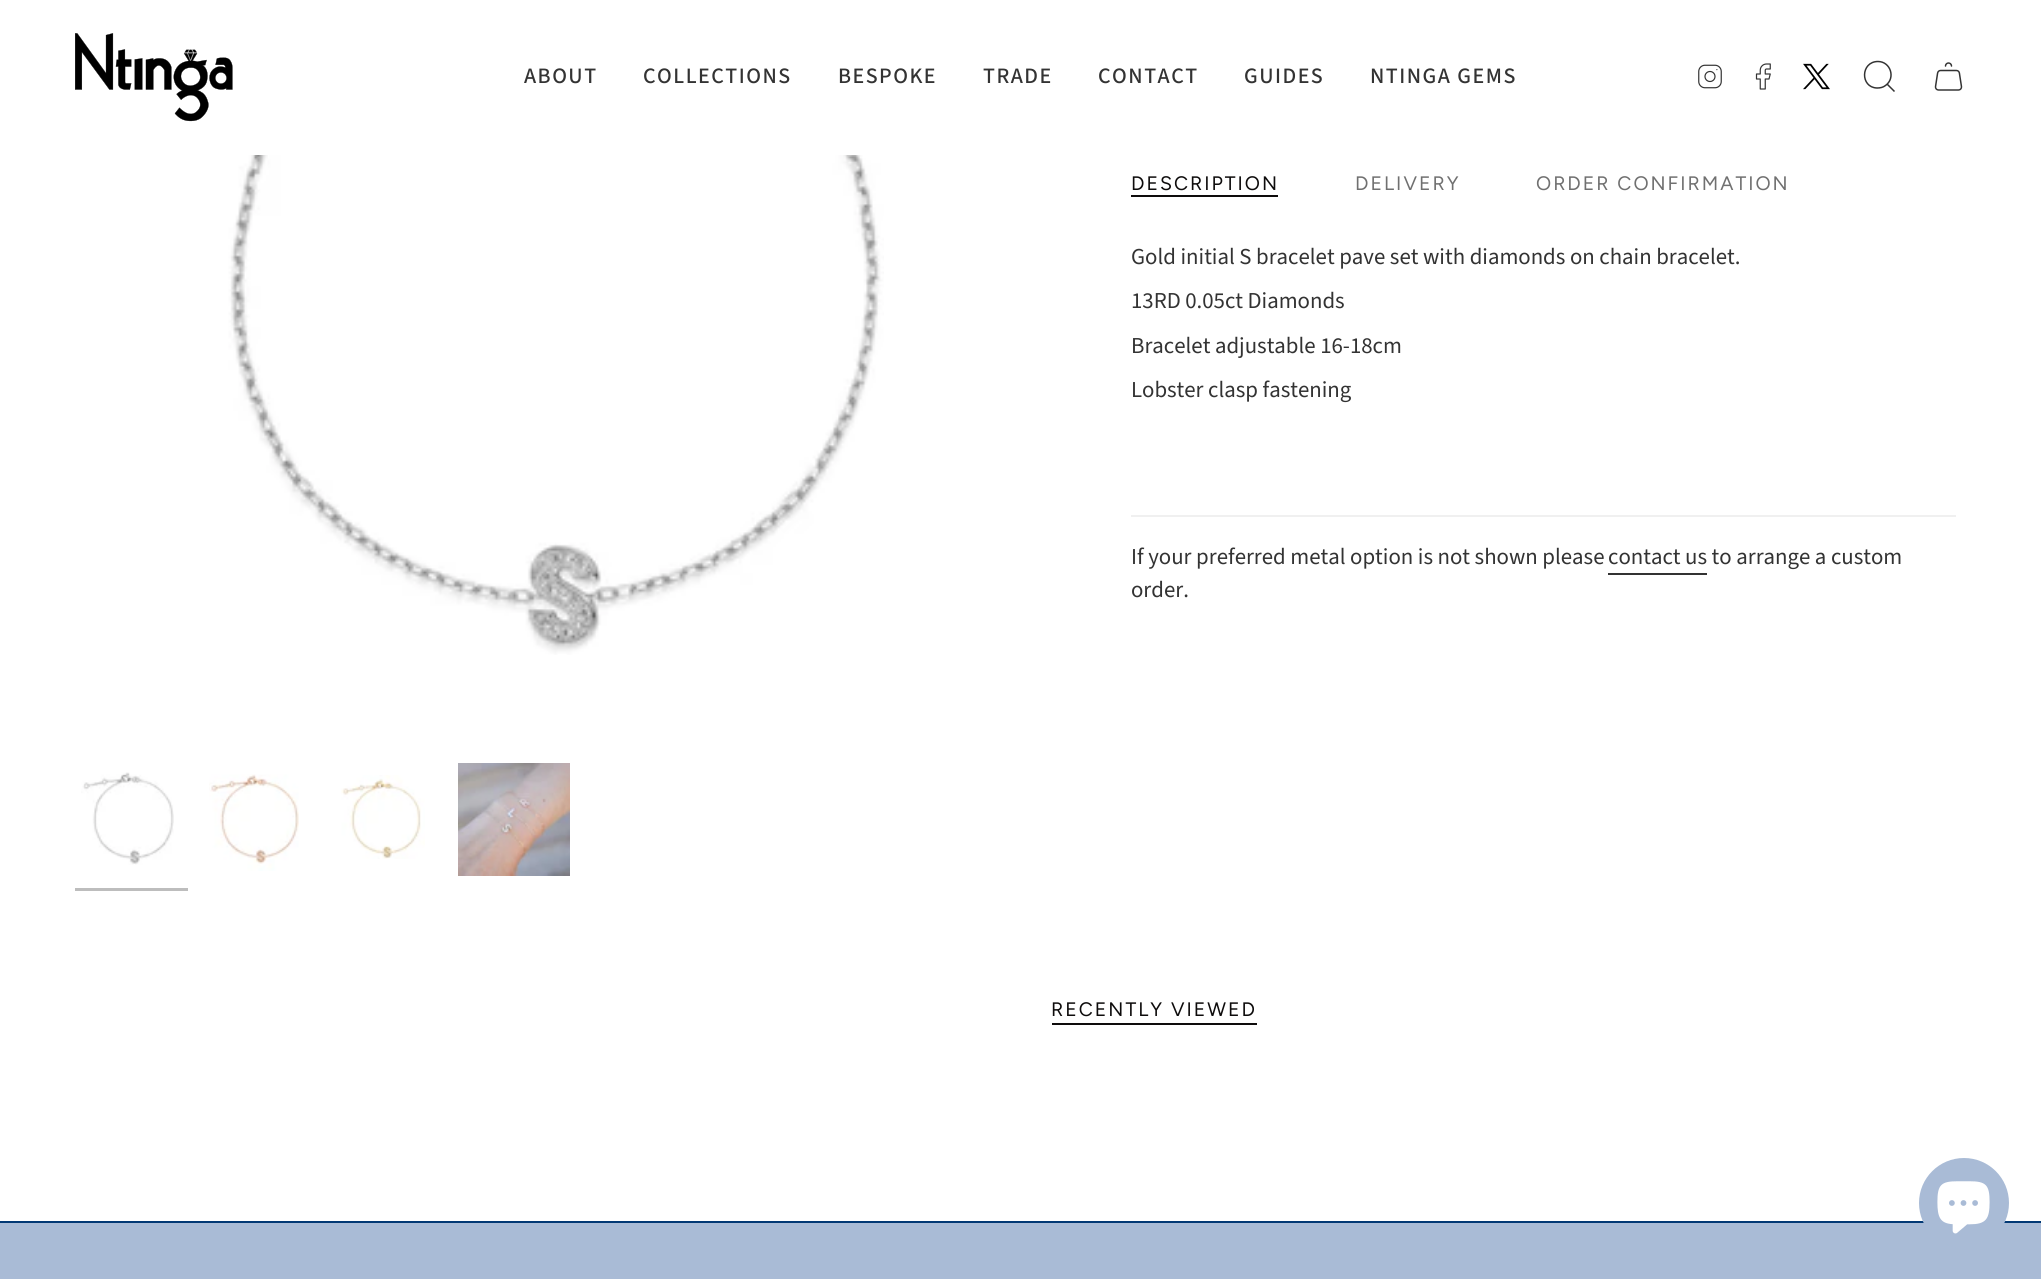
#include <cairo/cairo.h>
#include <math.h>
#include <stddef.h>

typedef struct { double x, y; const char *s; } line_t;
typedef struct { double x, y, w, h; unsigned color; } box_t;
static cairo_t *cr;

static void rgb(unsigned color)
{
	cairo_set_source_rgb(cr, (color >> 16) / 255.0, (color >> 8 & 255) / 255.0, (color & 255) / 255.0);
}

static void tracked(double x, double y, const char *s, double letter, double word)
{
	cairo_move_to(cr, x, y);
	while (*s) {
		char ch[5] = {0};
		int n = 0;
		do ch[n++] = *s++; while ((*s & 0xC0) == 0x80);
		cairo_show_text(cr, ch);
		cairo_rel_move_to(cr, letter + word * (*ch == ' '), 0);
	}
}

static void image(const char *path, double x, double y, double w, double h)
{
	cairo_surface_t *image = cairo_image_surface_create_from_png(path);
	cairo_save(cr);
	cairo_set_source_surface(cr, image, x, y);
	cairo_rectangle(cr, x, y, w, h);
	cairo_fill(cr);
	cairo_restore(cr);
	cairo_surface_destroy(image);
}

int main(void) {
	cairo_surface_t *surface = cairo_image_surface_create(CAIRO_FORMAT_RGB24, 2041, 1279);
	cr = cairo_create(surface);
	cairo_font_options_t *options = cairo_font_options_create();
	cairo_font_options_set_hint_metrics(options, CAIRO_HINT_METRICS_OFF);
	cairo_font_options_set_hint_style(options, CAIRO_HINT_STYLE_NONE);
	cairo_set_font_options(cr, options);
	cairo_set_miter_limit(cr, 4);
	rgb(0xffffff);
	cairo_paint(cr);
	image("img/1.png", 75, 33, 158, 89);
	image("img/2.png", 1698, 64, 24, 25);
	image("img/3.png", 1755, 63, 16, 27);
	image("img/4.png", 1803, 63, 27, 27);
	cairo_new_path(cr);
	cairo_move_to(cr, 1878, 61.5);
	cairo_curve_to(cr, 1890.5, 61.5, 1896, 78, 1885.5, 85.5);
	cairo_curve_to(cr, 1883, 87.5, 1880, 88, 1877, 88);
	cairo_curve_to(cr, 1860, 87.5, 1860.5, 61.5, 1878, 61.5);
	cairo_close_path(cr);
	cairo_move_to(cr, 1887, 84);
	cairo_line_to(cr, 1894.5, 91.5);
	rgb(0x333333);
	cairo_set_line_width(cr, 1.5);
	cairo_stroke(cr);
	image("img/5.png", 1934, 62, 29, 29);
	image("img/6.png", 146, 155, 738, 500);
	image("img/7.png", 81, 772, 93, 93);
	rgb(0xbdbdbd);
	cairo_rectangle(cr, 75, 888, 113, 3);
	cairo_fill(cr);
	image("img/8.png", 209, 774, 90, 97);
	image("img/9.png", 341, 775, 84, 84);
	image("img/10.png", 458, 763, 112, 113);
	{
		static const box_t items[] = {
			{1131, 195, 147, 2, 0x0e0c0c},
			{1131, 515, 825, 2, 0xf0f0f0},
			{1608, 573, 99, 2, 0x333333},
			{1052, 1023, 205, 2, 0x0e0c0c},
			{0, 1223, 2041, 56, 0xa9bbd6},
			{0, 1221, 2041, 2, 0x013874},
		};
		for (size_t i = 0; i < sizeof items / sizeof *items; i++) {
			rgb(items[i].color);
			cairo_rectangle(cr, items[i].x, items[i].y, items[i].w, items[i].h);
			cairo_fill(cr);
		}
	}
	rgb(0xa9bbd6);
	cairo_arc(cr, 1964, 1203, 45, 0, 2 * M_PI);
	cairo_fill(cr);
	image("img/11.png", 1937, 1181, 53, 53);
	cairo_select_font_face(cr, "Source Sans Pro Medium", CAIRO_FONT_SLANT_NORMAL, CAIRO_FONT_WEIGHT_NORMAL);
	cairo_set_font_size(cr, 22);
	rgb(0x333333);
	{
		static const line_t items[] = {
			{524, 83, "ABOUT"},
			{643, 83, "COLLECTIONS"},
			{838, 83, "BESPOKE"},
			{983, 83, "TRADE"},
			{1098, 83, "CONTACT"},
			{1244, 83, "GUIDES"},
			{1370, 83, "NTINGA GEMS"},
		};
		for (size_t i = 0; i < sizeof items / sizeof *items; i++) {
			tracked(items[i].x, items[i].y, items[i].s, 1.5, 0);
		}
	}
	cairo_select_font_face(cr, "Figtree", CAIRO_FONT_SLANT_NORMAL, CAIRO_FONT_WEIGHT_NORMAL);
	cairo_set_font_size(cr, 19.5);
	rgb(0x0e0c0c);
	tracked(1131, 190, "DESCRIPTION", 2, 0);
	rgb(0x707070);
	tracked(1355, 190, "DELIVERY", 2, 0);
	tracked(1536, 190, "ORDER CONFIRMATION", 2, 0);
	cairo_select_font_face(cr, "Source Sans Pro", CAIRO_FONT_SLANT_NORMAL, CAIRO_FONT_WEIGHT_NORMAL);
	cairo_set_font_size(cr, 22.8);
	rgb(0x333333);
	{
		static const line_t items[] = {
			{1131, 264, "Gold initial S bracelet pave set with diamonds on chain bracelet."},
			{1131, 308, "13RD 0.05ct Diamonds"},
			{1131, 353, "Bracelet adjustable 16-18cm"},
			{1131, 397, "Lobster clasp fastening"},
			{1131, 564, "If your preferred metal option is not shown please"},
			{1608, 564, "contact us to arrange a custom"},
			{1131, 597, "order."},
		};
		for (size_t i = 0; i < sizeof items / sizeof *items; i++) {
			cairo_move_to(cr, items[i].x, items[i].y);
			cairo_show_text(cr, items[i].s);
		}
	}
	cairo_select_font_face(cr, "Figtree", CAIRO_FONT_SLANT_NORMAL, CAIRO_FONT_WEIGHT_NORMAL);
	cairo_set_font_size(cr, 19.5);
	rgb(0x0e0c0c);
	tracked(1051, 1016, "RECENTLY VIEWED", 2, 0);
	cairo_surface_write_to_png(surface, "page.png");
	cairo_font_options_destroy(options);
	cairo_destroy(cr);
	cairo_surface_destroy(surface);
	return 0;
}
